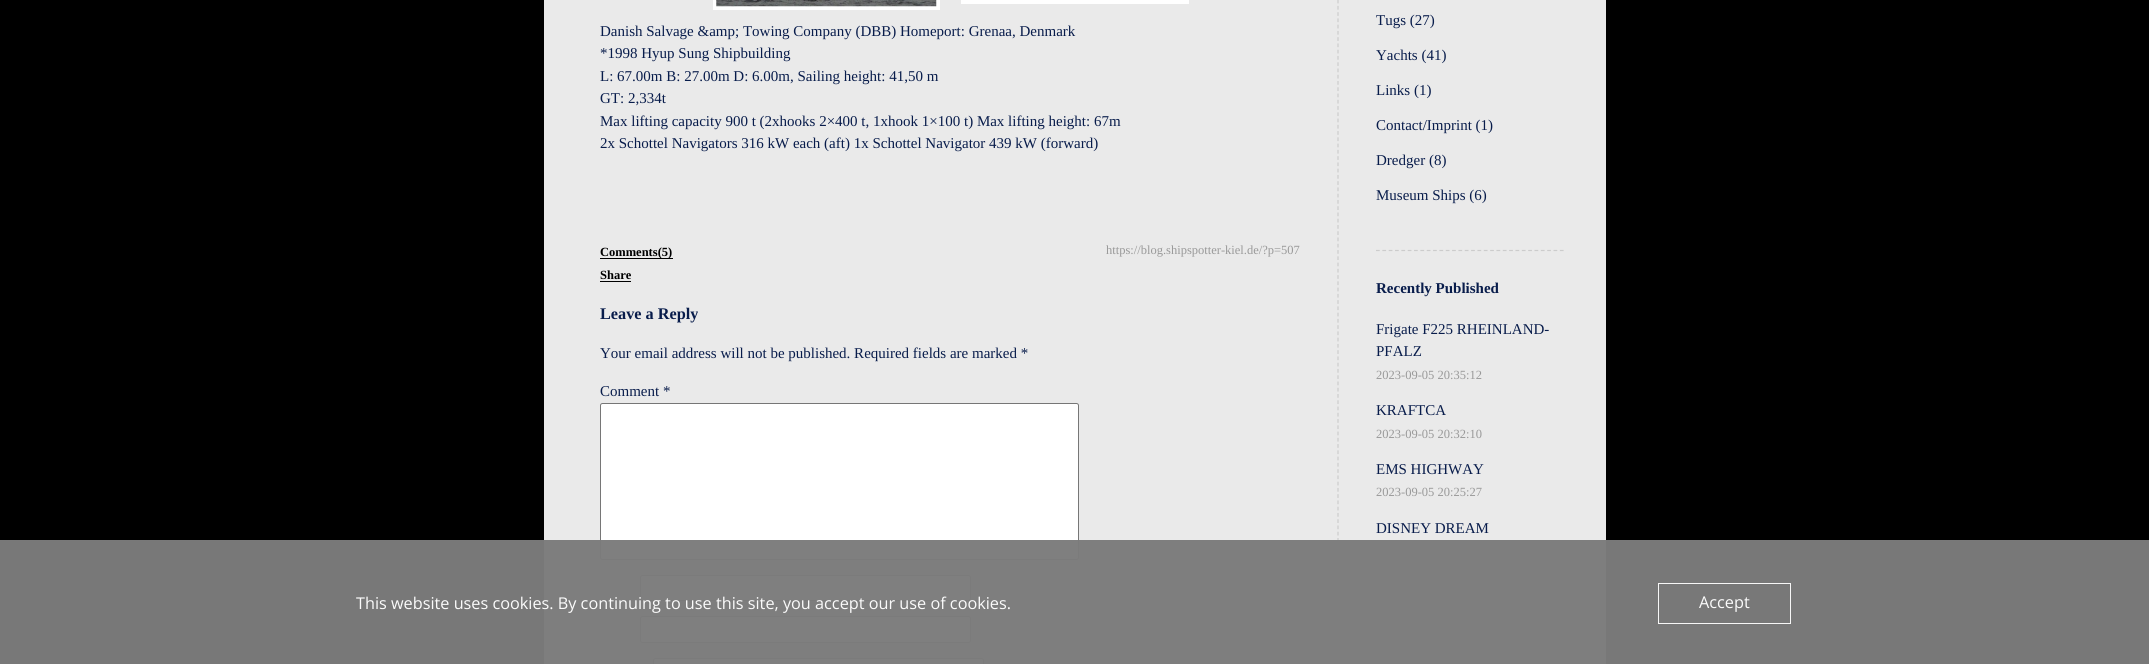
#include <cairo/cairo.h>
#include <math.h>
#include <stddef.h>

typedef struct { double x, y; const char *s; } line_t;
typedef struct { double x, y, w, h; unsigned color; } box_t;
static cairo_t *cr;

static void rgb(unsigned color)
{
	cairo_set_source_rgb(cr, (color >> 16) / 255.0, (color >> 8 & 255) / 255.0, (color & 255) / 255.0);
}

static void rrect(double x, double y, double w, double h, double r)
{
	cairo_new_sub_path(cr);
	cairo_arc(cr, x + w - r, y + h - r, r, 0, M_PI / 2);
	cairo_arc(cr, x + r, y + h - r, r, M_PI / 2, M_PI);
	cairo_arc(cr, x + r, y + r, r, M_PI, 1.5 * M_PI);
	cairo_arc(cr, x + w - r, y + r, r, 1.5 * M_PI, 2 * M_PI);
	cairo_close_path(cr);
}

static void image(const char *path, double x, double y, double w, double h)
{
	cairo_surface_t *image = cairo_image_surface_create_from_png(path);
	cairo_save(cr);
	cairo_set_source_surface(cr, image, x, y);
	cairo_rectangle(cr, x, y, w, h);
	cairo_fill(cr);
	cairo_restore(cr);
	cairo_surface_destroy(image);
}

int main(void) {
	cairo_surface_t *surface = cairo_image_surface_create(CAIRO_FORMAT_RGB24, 2149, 664);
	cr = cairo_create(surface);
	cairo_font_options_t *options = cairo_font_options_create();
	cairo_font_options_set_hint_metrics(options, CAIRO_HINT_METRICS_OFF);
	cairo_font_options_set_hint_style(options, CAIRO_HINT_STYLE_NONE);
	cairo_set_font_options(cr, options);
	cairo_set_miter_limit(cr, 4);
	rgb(0x000000);
	cairo_paint(cr);
	rgb(0xeaeaea);
	cairo_rectangle(cr, 544, 0, 1062, 664);
	cairo_fill(cr);
	rgb(0xffffff);
	cairo_rectangle(cr, 713, 0, 227, 10);
	cairo_fill(cr);
	image("img/1.png", 716, 0, 221, 7);
	{
		static const box_t items[] = {
			{961, 0, 228, 4, 0xffffff},
			{600, 258, 73, 1, 0x000000},
			{600, 281, 31, 1, 0x000000},
		};
		for (size_t i = 0; i < sizeof items / sizeof *items; i++) {
			rgb(items[i].color);
			cairo_rectangle(cr, items[i].x, items[i].y, items[i].w, items[i].h);
			cairo_fill(cr);
		}
	}
	rgb(0xffffff);
	rrect(600.5, 403.5, 478, 156, 2);
	cairo_fill_preserve(cr);
	rgb(0x767676);
	cairo_set_line_width(cr, 1);
	cairo_stroke(cr);
	rgb(0xffffff);
	rrect(640.5, 575.5, 330, 25, 2);
	cairo_fill_preserve(cr);
	rgb(0x767676);
	cairo_stroke(cr);
	rgb(0xffffff);
	rrect(640.5, 616.5, 330, 26, 2);
	cairo_fill_preserve(cr);
	rgb(0x767676);
	cairo_stroke(cr);
	rgb(0xffffff);
	rrect(653.5, 658.5, 330, 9, 2);
	cairo_fill_preserve(cr);
	rgb(0x767676);
	cairo_stroke(cr);
	cairo_new_path(cr);
	cairo_move_to(cr, 1338, -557.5);
	cairo_line_to(cr, 1338, 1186);
	rgb(0xcccccc);
	cairo_set_line_width(cr, 1.2);
	cairo_set_dash(cr, (double[]){3.75, 2.51}, 2, 0);
	cairo_stroke(cr);
	cairo_new_path(cr);
	cairo_move_to(cr, 1376, 250.5);
	cairo_line_to(cr, 1564, 250.5);
	cairo_set_dash(cr, (double[]){3.75, 2.59}, 2, 0);
	cairo_stroke(cr);
	cairo_set_source_rgba(cr, 0.486, 0.486, 0.486, 0.97);
	cairo_rectangle(cr, 0, 540, 2149, 124);
	cairo_fill(cr);
	cairo_rectangle(cr, 1658.5, 583.5, 132, 40);
	rgb(0xf7f7f7);
	cairo_set_line_width(cr, 1);
	cairo_set_dash(cr, NULL, 0, 0);
	cairo_stroke(cr);
	cairo_select_font_face(cr, "Liberation Serif", CAIRO_FONT_SLANT_NORMAL, CAIRO_FONT_WEIGHT_NORMAL);
	cairo_set_font_size(cr, 15);
	rgb(0x081c4b);
	{
		static const line_t items[] = {
			{600, 36, "Danish Salvage &amp; Towing Company (DBB) Homeport: Grenaa, Denmark"},
			{600, 58, "*1998 Hyup Sung Shipbuilding"},
			{600, 81, "L: 67.00m B: 27.00m D: 6.00m, Sailing height: 41,50 m"},
			{600, 103, "GT: 2,334t"},
			{600, 126, "Max lifting capacity 900 t (2xhooks 2×400 t, 1xhook 1×100 t) Max lifting height: 67m"},
			{600, 148, "2x Schottel Navigators 316 kW each (aft) 1x Schottel Navigator 439 kW (forward)"},
		};
		for (size_t i = 0; i < sizeof items / sizeof *items; i++) {
			cairo_move_to(cr, items[i].x, items[i].y);
			cairo_show_text(cr, items[i].s);
		}
	}
	cairo_select_font_face(cr, "Liberation Serif", CAIRO_FONT_SLANT_NORMAL, CAIRO_FONT_WEIGHT_BOLD);
	cairo_set_font_size(cr, 12.5);
	rgb(0x000000);
	cairo_move_to(cr, 600, 256);
	cairo_show_text(cr, "Comments(5)");
	cairo_select_font_face(cr, "Liberation Serif", CAIRO_FONT_SLANT_NORMAL, CAIRO_FONT_WEIGHT_NORMAL);
	rgb(0x999999);
	cairo_move_to(cr, 1106, 254);
	cairo_show_text(cr, "https://blog.shipspotter-kiel.de/?p=507");
	cairo_select_font_face(cr, "Liberation Serif", CAIRO_FONT_SLANT_NORMAL, CAIRO_FONT_WEIGHT_BOLD);
	rgb(0x000000);
	cairo_move_to(cr, 600, 279);
	cairo_show_text(cr, "Share");
	cairo_set_font_size(cr, 16.25);
	rgb(0x081c4b);
	cairo_move_to(cr, 600, 319);
	cairo_show_text(cr, "Leave a Reply");
	cairo_select_font_face(cr, "Liberation Serif", CAIRO_FONT_SLANT_NORMAL, CAIRO_FONT_WEIGHT_NORMAL);
	cairo_set_font_size(cr, 15);
	{
		static const line_t items[] = {
			{600, 358, "Your email address will not be published. Required fields are marked *"},
			{600, 396, "Comment *"},
			{1376, 25, "Tugs (27)"},
			{1376, 60, "Yachts (41)"},
			{1376, 95, "Links (1)"},
			{1376, 130, "Contact/Imprint (1)"},
			{1376, 165, "Dredger (8)"},
			{1376, 200, "Museum Ships (6)"},
		};
		for (size_t i = 0; i < sizeof items / sizeof *items; i++) {
			cairo_move_to(cr, items[i].x, items[i].y);
			cairo_show_text(cr, items[i].s);
		}
	}
	cairo_select_font_face(cr, "Liberation Serif", CAIRO_FONT_SLANT_NORMAL, CAIRO_FONT_WEIGHT_BOLD);
	cairo_move_to(cr, 1376, 293);
	cairo_show_text(cr, "Recently Published");
	cairo_select_font_face(cr, "Liberation Serif", CAIRO_FONT_SLANT_NORMAL, CAIRO_FONT_WEIGHT_NORMAL);
	cairo_move_to(cr, 1376, 334);
	cairo_show_text(cr, "Frigate F225 RHEINLAND-");
	cairo_move_to(cr, 1376, 356);
	cairo_show_text(cr, "PFALZ");
	cairo_set_font_size(cr, 12.5);
	rgb(0x999999);
	cairo_move_to(cr, 1376, 379);
	cairo_show_text(cr, "2023-09-05 20:35:12");
	cairo_set_font_size(cr, 15);
	rgb(0x081c4b);
	cairo_move_to(cr, 1376, 415);
	cairo_show_text(cr, "KRAFTCA");
	cairo_set_font_size(cr, 12.5);
	rgb(0x999999);
	cairo_move_to(cr, 1376, 438);
	cairo_show_text(cr, "2023-09-05 20:32:10");
	cairo_set_font_size(cr, 15);
	rgb(0x081c4b);
	cairo_move_to(cr, 1376, 474);
	cairo_show_text(cr, "EMS HIGHWAY");
	cairo_set_font_size(cr, 12.5);
	rgb(0x999999);
	cairo_move_to(cr, 1376, 496);
	cairo_show_text(cr, "2023-09-05 20:25:27");
	cairo_set_font_size(cr, 15);
	rgb(0x081c4b);
	cairo_move_to(cr, 1376, 533);
	cairo_show_text(cr, "DISNEY DREAM");
	cairo_select_font_face(cr, "Open Sans", CAIRO_FONT_SLANT_NORMAL, CAIRO_FONT_WEIGHT_NORMAL);
	cairo_set_font_size(cr, 16.25);
	rgb(0xfbfbfb);
	cairo_move_to(cr, 356, 609);
	cairo_show_text(cr, "This website uses cookies. By continuing to use this site, you accept our use of cookies.");
	cairo_move_to(cr, 1699, 608);
	cairo_show_text(cr, "Accept");
	cairo_surface_write_to_png(surface, "page.png");
	cairo_font_options_destroy(options);
	cairo_destroy(cr);
	cairo_surface_destroy(surface);
	return 0;
}
